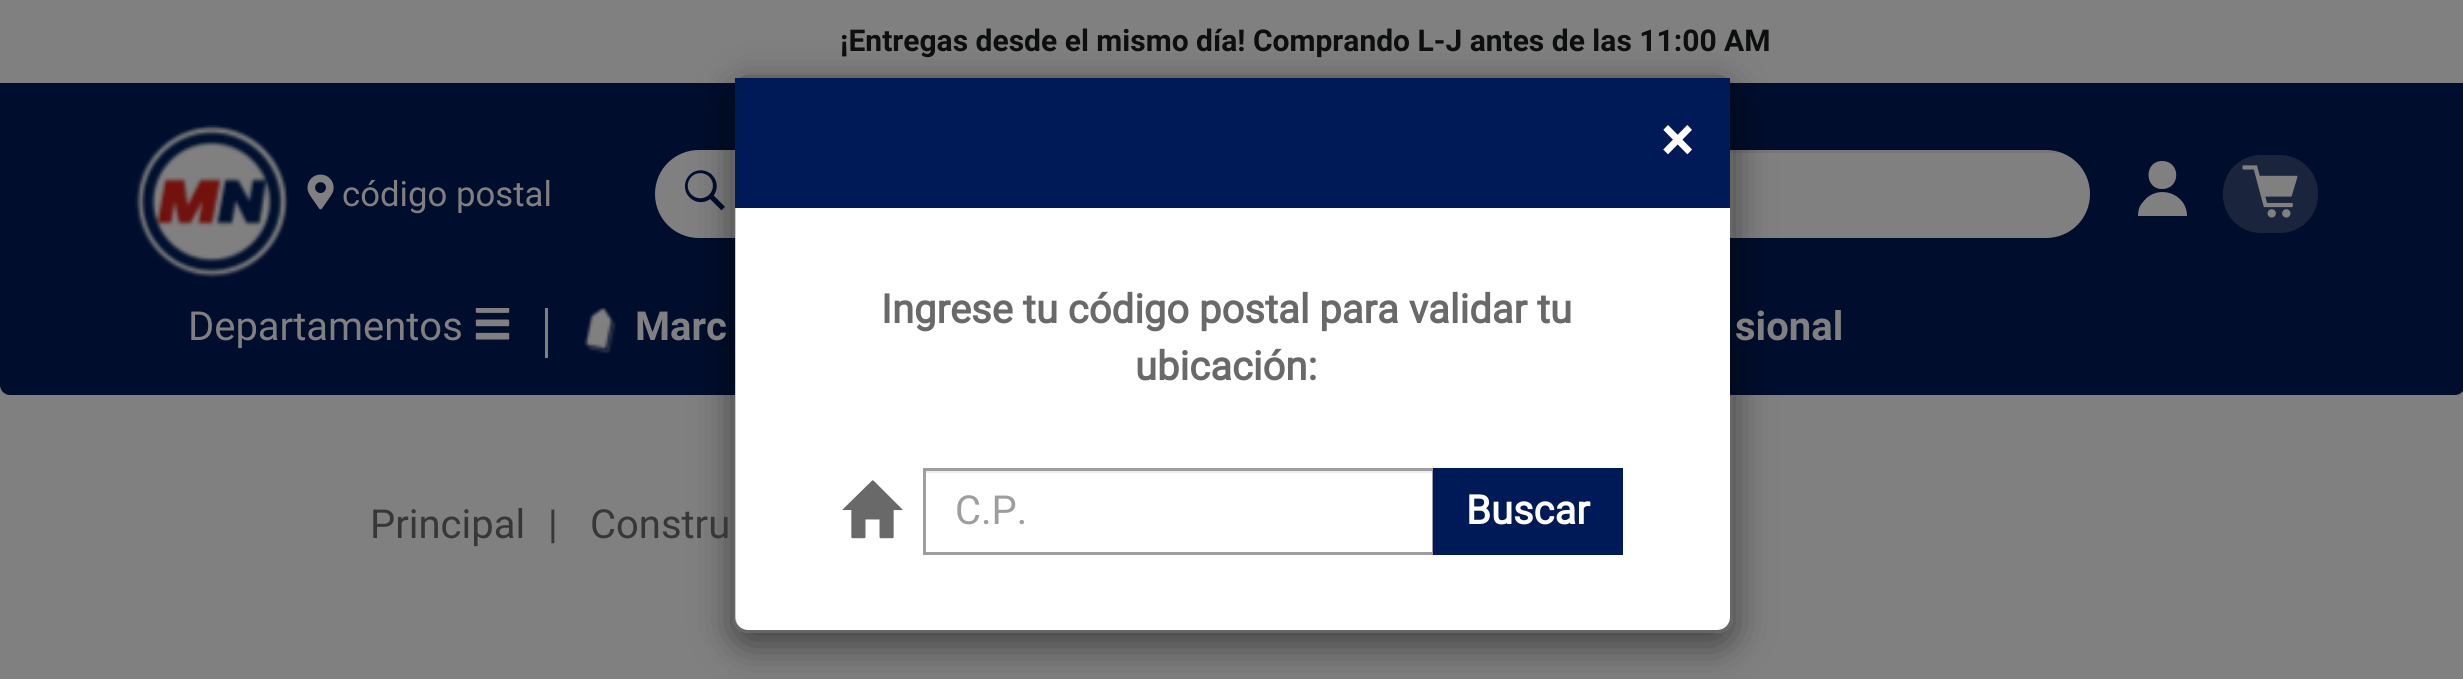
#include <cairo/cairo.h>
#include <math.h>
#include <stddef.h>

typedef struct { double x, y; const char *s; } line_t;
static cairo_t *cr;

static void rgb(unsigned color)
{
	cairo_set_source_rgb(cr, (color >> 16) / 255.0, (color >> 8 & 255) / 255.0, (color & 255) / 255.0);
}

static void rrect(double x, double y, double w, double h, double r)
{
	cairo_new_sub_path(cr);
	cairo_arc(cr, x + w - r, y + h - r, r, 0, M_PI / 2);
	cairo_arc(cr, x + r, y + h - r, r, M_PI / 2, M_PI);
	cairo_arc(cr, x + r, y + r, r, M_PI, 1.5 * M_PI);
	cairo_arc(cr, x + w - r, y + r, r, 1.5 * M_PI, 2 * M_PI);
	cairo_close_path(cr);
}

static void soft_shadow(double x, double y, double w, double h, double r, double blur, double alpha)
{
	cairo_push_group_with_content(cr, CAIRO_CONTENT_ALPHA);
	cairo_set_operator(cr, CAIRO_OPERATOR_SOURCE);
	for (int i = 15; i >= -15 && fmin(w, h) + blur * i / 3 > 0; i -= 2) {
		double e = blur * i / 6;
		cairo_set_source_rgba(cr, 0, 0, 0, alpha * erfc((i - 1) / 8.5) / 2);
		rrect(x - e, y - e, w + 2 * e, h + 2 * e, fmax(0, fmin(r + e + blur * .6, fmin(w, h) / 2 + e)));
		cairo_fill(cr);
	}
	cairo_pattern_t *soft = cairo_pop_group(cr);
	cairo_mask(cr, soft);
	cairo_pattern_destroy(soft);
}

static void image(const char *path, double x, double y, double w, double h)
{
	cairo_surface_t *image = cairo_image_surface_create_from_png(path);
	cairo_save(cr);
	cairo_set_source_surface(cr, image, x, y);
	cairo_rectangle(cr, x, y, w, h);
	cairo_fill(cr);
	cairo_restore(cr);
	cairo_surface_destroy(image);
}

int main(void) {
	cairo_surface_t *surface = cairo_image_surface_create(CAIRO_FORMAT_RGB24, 2463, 679);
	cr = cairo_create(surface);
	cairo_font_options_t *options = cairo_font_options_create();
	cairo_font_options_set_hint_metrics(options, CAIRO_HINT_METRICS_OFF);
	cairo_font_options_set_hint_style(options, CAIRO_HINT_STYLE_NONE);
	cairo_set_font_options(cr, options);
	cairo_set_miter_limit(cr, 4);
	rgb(0x808080);
	cairo_paint(cr);
	rgb(0x000d2c);
	rrect(0, 260, 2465, 135, 10);
	cairo_fill(cr);
	cairo_rectangle(cr, 0, 83, 2463, 187);
	cairo_fill(cr);
	image("img/1.png", 135, 125, 154, 154);
	image("img/2.png", 307, 174, 27, 36);
	rgb(0x808080);
	cairo_new_path(cr);
	cairo_move_to(cr, 699, 150);
	cairo_line_to(cr, 758, 150);
	cairo_line_to(cr, 758, 238);
	cairo_line_to(cr, 699, 238);
	cairo_curve_to(cr, 674.5, 238, 655, 218.5, 655, 194);
	cairo_curve_to(cr, 655, 169.5, 674.5, 150, 699, 150);
	cairo_close_path(cr);
	cairo_fill(cr);
	image("img/3.png", 684, 170, 41, 41);
	cairo_new_path(cr);
	cairo_move_to(cr, 758, 150);
	cairo_line_to(cr, 2046, 150);
	cairo_curve_to(cr, 2070.5, 150, 2090, 169.5, 2090, 194);
	cairo_curve_to(cr, 2090, 218.5, 2070.5, 238, 2046, 238);
	cairo_line_to(cr, 758, 238);
	cairo_close_path(cr);
	cairo_fill(cr);
	cairo_save(cr);
	rrect(655, 150, 1435, 88, 44);
	cairo_clip(cr);
	cairo_set_source_rgba(cr, 0, 0, 0, 0.07);
	cairo_rectangle(cr, 1730, 150, 331, 3);
	cairo_fill(cr);
	cairo_restore(cr);
	cairo_new_path(cr);
	cairo_move_to(cr, 2162, 189);
	cairo_curve_to(cr, 2181, 189, 2181, 161, 2162, 161);
	cairo_curve_to(cr, 2144, 161, 2144, 189, 2162, 189);
	cairo_close_path(cr);
	cairo_move_to(cr, 2138, 216);
	cairo_curve_to(cr, 2138, 211, 2139, 206, 2143, 202);
	cairo_curve_to(cr, 2157, 183, 2187, 193, 2187, 216);
	cairo_close_path(cr);
	cairo_fill(cr);
	rgb(0x1a243d);
	rrect(2223, 155, 95, 78, 38);
	cairo_fill(cr);
	image("img/4.png", 2242, 165, 56, 53);
	cairo_save(cr);
	cairo_set_fill_rule(cr, CAIRO_FILL_RULE_EVEN_ODD);
	cairo_new_path(cr);
	cairo_move_to(cr, 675, 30);
	cairo_line_to(cr, 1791, 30);
	cairo_line_to(cr, 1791, 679);
	cairo_line_to(cr, 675, 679);
	cairo_close_path(cr);
	cairo_move_to(cr, 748, 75);
	cairo_line_to(cr, 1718, 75);
	cairo_curve_to(cr, 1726.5, 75, 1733, 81.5, 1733, 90);
	cairo_line_to(cr, 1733, 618);
	cairo_curve_to(cr, 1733, 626.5, 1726.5, 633, 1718, 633);
	cairo_line_to(cr, 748, 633);
	cairo_curve_to(cr, 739.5, 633, 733, 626.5, 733, 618);
	cairo_line_to(cr, 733, 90);
	cairo_curve_to(cr, 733, 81.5, 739.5, 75, 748, 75);
	cairo_close_path(cr);
	cairo_clip(cr);
	rgb(0x000000);
	soft_shadow(733, 88, 1000, 557, 15, 19, 0.5);
	cairo_restore(cr);
	rgb(0xffffff);
	rrect(735, 78, 995, 552, 13);
	cairo_fill(cr);
	rrect(734.5, 76.5, 997, 555, 13.5);
	cairo_set_source_rgba(cr, 0, 0, 0, 0.2);
	cairo_set_line_width(cr, 3);
	cairo_stroke(cr);
	rgb(0x001a57);
	cairo_rectangle(cr, 735, 78, 995, 130);
	cairo_fill(cr);
	image("img/5.png", 842, 480, 61, 59);
	rgb(0xececec);
	cairo_rectangle(cr, 925, 471, 508, 2);
	cairo_fill(cr);
	cairo_rectangle(cr, 924.5, 469.5, 509, 84);
	rgb(0x9e9e9e);
	cairo_stroke(cr);
	rgb(0x001a57);
	cairo_rectangle(cr, 1433, 468, 190, 87);
	cairo_fill(cr);
	image("img/6.png", 475, 308, 35, 32);
	rgb(0x808080);
	cairo_rectangle(cr, 545, 308, 3, 50);
	cairo_fill(cr);
	image("img/7.png", 584, 308, 32, 46);
	cairo_select_font_face(cr, "Roboto", CAIRO_FONT_SLANT_NORMAL, CAIRO_FONT_WEIGHT_BOLD);
	cairo_set_font_size(cr, 30);
	rgb(0x0d0e0e);
	cairo_move_to(cr, 840, 51);
	cairo_show_text(cr, "¡Entregas desde el mismo día! Comprando L-J antes de las 11:00 AM");
	cairo_select_font_face(cr, "Roboto", CAIRO_FONT_SLANT_NORMAL, CAIRO_FONT_WEIGHT_NORMAL);
	cairo_set_font_size(cr, 34.75);
	rgb(0x808080);
	cairo_move_to(cr, 342, 206);
	cairo_show_text(cr, "código postal");
	cairo_select_font_face(cr, "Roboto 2", CAIRO_FONT_SLANT_NORMAL, CAIRO_FONT_WEIGHT_BOLD);
	cairo_set_font_size(cr, 60);
	rgb(0xffffff);
	cairo_move_to(cr, 1661, 160);
	cairo_show_text(cr, "×");
	cairo_set_font_size(cr, 40);
	rgb(0x696969);
	cairo_move_to(cr, 881, 323);
	cairo_show_text(cr, "Ingrese tu código postal para validar tu");
	cairo_move_to(cr, 1135, 380);
	cairo_show_text(cr, "ubicación:");
	cairo_select_font_face(cr, "Roboto", CAIRO_FONT_SLANT_NORMAL, CAIRO_FONT_WEIGHT_NORMAL);
	rgb(0x9e9e9e);
	cairo_move_to(cr, 955, 524);
	cairo_show_text(cr, "C.P.");
	cairo_select_font_face(cr, "Roboto 2", CAIRO_FONT_SLANT_NORMAL, CAIRO_FONT_WEIGHT_BOLD);
	rgb(0xffffff);
	cairo_move_to(cr, 1466, 524);
	cairo_show_text(cr, "Buscar");
	cairo_select_font_face(cr, "Roboto", CAIRO_FONT_SLANT_NORMAL, CAIRO_FONT_WEIGHT_NORMAL);
	rgb(0x808080);
	cairo_move_to(cr, 188, 340);
	cairo_show_text(cr, "Departamentos");
	cairo_select_font_face(cr, "Roboto", CAIRO_FONT_SLANT_NORMAL, CAIRO_FONT_WEIGHT_BOLD);
	cairo_move_to(cr, 635, 340);
	cairo_show_text(cr, "Marc");
	cairo_move_to(cr, 1735, 340);
	cairo_show_text(cr, "sional");
	cairo_select_font_face(cr, "Roboto", CAIRO_FONT_SLANT_NORMAL, CAIRO_FONT_WEIGHT_NORMAL);
	rgb(0x373737);
	{
		static const line_t items[] = {
			{370, 538, "Principal"},
			{548, 538, "|"},
			{590, 538, "Constru"},
		};
		for (size_t i = 0; i < sizeof items / sizeof *items; i++) {
			cairo_move_to(cr, items[i].x, items[i].y);
			cairo_show_text(cr, items[i].s);
		}
	}
	cairo_surface_write_to_png(surface, "page.png");
	cairo_font_options_destroy(options);
	cairo_destroy(cr);
	cairo_surface_destroy(surface);
	return 0;
}
